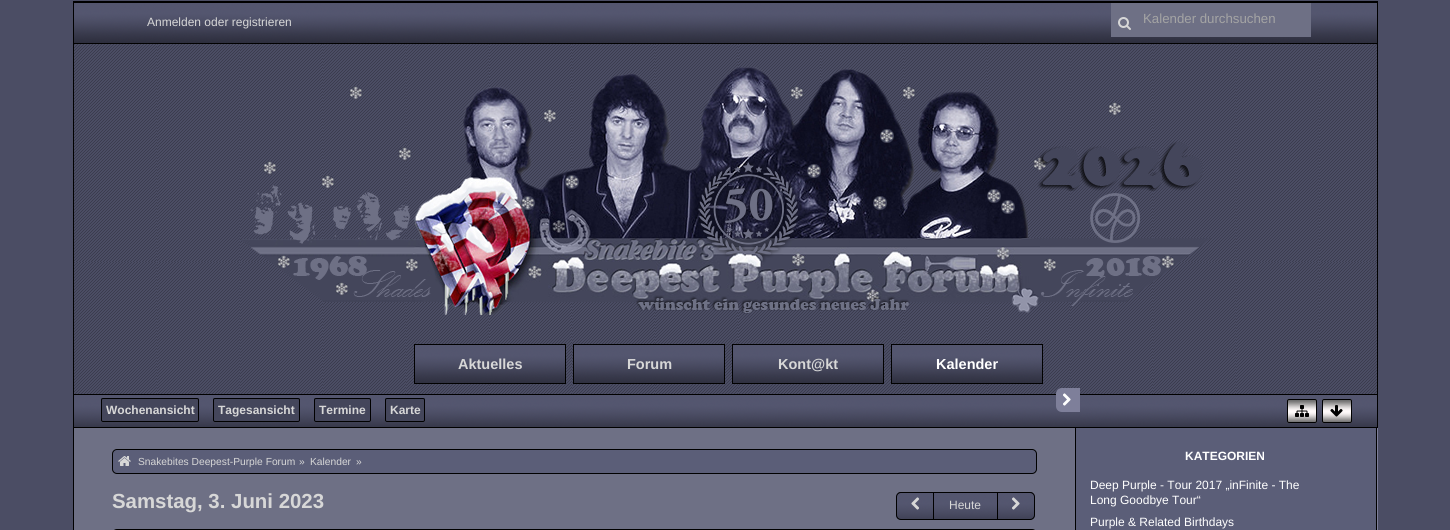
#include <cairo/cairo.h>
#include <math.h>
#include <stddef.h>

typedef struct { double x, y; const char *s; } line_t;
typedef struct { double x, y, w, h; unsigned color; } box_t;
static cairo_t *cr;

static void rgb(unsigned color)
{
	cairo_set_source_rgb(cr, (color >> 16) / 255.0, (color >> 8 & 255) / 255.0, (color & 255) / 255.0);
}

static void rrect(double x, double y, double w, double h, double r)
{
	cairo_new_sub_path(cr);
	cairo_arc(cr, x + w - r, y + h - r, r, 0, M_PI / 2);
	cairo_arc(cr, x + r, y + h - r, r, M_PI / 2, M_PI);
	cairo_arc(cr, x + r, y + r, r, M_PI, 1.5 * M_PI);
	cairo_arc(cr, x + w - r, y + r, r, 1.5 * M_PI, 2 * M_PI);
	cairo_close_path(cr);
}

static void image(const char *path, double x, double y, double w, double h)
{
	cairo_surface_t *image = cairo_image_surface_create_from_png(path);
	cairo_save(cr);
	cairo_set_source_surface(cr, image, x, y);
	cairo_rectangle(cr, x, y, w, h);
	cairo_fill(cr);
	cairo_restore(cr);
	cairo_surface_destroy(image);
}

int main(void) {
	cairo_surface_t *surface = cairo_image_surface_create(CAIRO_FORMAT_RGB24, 1450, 530);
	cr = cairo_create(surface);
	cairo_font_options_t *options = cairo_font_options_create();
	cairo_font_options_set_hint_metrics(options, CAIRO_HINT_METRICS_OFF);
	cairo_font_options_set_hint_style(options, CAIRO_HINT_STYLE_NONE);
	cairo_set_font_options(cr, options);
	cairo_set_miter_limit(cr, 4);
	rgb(0x4b4d64);
	cairo_paint(cr);
	image("img/1.png", 74, 44, 1303, 350);
	cairo_rectangle(cr, 73.5, 1.5, 1304, 426);
	rgb(0x000000);
	cairo_set_line_width(cr, 1);
	cairo_stroke(cr);
	image("img/2.png", 74, 3, 1303, 40);
	{
		static const box_t items[] = {
			{74, 2, 1303, 1, 0x000000},
			{74, 43, 1303, 1, 0x000000},
			{1111, 3, 200, 34, 0x6e7085},
		};
		for (size_t i = 0; i < sizeof items / sizeof *items; i++) {
			rgb(items[i].color);
			cairo_rectangle(cr, items[i].x, items[i].y, items[i].w, items[i].h);
			cairo_fill(cr);
		}
	}
	image("img/3.png", 1118, 17, 13, 13);
	image("img/4.png", 241, 67, 970, 248);
	image("img/5.png", 415, 345, 150, 38);
	cairo_rectangle(cr, 414.5, 344.5, 151, 39);
	rgb(0x000000);
	cairo_stroke(cr);
	image("img/5.png", 574, 345, 150, 38);
	cairo_rectangle(cr, 573.5, 344.5, 151, 39);
	cairo_stroke(cr);
	image("img/5.png", 733, 345, 150, 38);
	cairo_rectangle(cr, 732.5, 344.5, 151, 39);
	cairo_stroke(cr);
	image("img/5.png", 892, 345, 150, 38);
	cairo_rectangle(cr, 891.5, 344.5, 151, 39);
	cairo_stroke(cr);
	image("img/6.png", 74, 395, 1303, 32);
	cairo_rectangle(cr, 74, 394, 1303, 1);
	cairo_fill(cr);
	rgb(0x44465b);
	cairo_rectangle(cr, 101, 398, 98, 24);
	cairo_fill(cr);
	rrect(101.5, 398.5, 97, 23, 1.5);
	rgb(0x000000);
	cairo_stroke(cr);
	rgb(0x44465b);
	cairo_rectangle(cr, 213, 398, 87, 24);
	cairo_fill(cr);
	rrect(213.5, 398.5, 86, 23, 1.5);
	rgb(0x000000);
	cairo_stroke(cr);
	rgb(0x44465b);
	cairo_rectangle(cr, 314, 398, 57, 24);
	cairo_fill(cr);
	rrect(314.5, 398.5, 56, 23, 1.5);
	rgb(0x000000);
	cairo_stroke(cr);
	rgb(0x44465b);
	cairo_rectangle(cr, 385, 398, 40, 24);
	cairo_fill(cr);
	rrect(385.5, 398.5, 39, 23, 1.5);
	rgb(0x000000);
	cairo_stroke(cr);
	image("img/7.png", 1287, 399, 30, 24);
	rrect(1287.5, 399.5, 29, 23, 1.5);
	cairo_stroke(cr);
	image("img/8.png", 1295, 405, 14, 12);
	image("img/9.png", 1322, 399, 30, 24);
	rrect(1322.5, 399.5, 29, 23, 1.5);
	cairo_stroke(cr);
	image("img/10.png", 1330, 405, 13, 12);
	{
		static const box_t items[] = {
			{1377, 428, 1, 102, 0x7e7f9a},
			{74, 428, 1001, 102, 0x6e7085},
			{1075, 428, 1, 102, 0x000000},
			{73, 428, 1, 102, 0x000000},
		};
		for (size_t i = 0; i < sizeof items / sizeof *items; i++) {
			rgb(items[i].color);
			cairo_rectangle(cr, items[i].x, items[i].y, items[i].w, items[i].h);
			cairo_fill(cr);
		}
	}
	rgb(0x5b5e78);
	rrect(112.5, 449.5, 924, 24, 4.5);
	cairo_fill_preserve(cr);
	rgb(0x000000);
	cairo_stroke(cr);
	image("img/11.png", 118, 456, 13, 10);
	image("img/12.png", 896, 492, 37, 28);
	cairo_new_path(cr);
	cairo_move_to(cr, 901, 492.5);
	cairo_line_to(cr, 933.5, 492.5);
	cairo_line_to(cr, 933.5, 519.5);
	cairo_line_to(cr, 901, 519.5);
	cairo_curve_to(cr, 898.5, 519.5, 896.5, 517.5, 896.5, 515);
	cairo_line_to(cr, 896.5, 497);
	cairo_curve_to(cr, 896.5, 494.5, 898.5, 492.5, 901, 492.5);
	cairo_close_path(cr);
	cairo_stroke(cr);
	image("img/13.png", 911, 497, 8, 13);
	image("img/14.png", 934, 493, 63, 26);
	cairo_rectangle(cr, 933.5, 492.5, 64, 27);
	cairo_stroke(cr);
	image("img/15.png", 998, 492, 37, 28);
	cairo_new_path(cr);
	cairo_move_to(cr, 997.5, 492.5);
	cairo_line_to(cr, 1030, 492.5);
	cairo_curve_to(cr, 1032.5, 492.5, 1034.5, 494.5, 1034.5, 497);
	cairo_line_to(cr, 1034.5, 515);
	cairo_curve_to(cr, 1034.5, 517.5, 1032.5, 519.5, 1030, 519.5);
	cairo_line_to(cr, 997.5, 519.5);
	cairo_close_path(cr);
	cairo_stroke(cr);
	image("img/16.png", 1012, 497, 8, 13);
	rrect(112.5, 529.5, 924, 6, 4.5);
	cairo_stroke(cr);
	rgb(0x5b5e78);
	cairo_rectangle(cr, 1076, 428, 300, 102);
	cairo_fill(cr);
	rgb(0x000000);
	cairo_rectangle(cr, 1376, 428, 1, 102);
	cairo_fill(cr);
	rgb(0x7e7f9a);
	cairo_new_path(cr);
	cairo_move_to(cr, 1062, 388);
	cairo_line_to(cr, 1080, 388);
	cairo_line_to(cr, 1080, 412);
	cairo_line_to(cr, 1062, 412);
	cairo_curve_to(cr, 1058.5, 412, 1056, 409.5, 1056, 406);
	cairo_line_to(cr, 1056, 394);
	cairo_curve_to(cr, 1056, 390.5, 1058.5, 388, 1062, 388);
	cairo_close_path(cr);
	cairo_fill(cr);
	image("img/17.png", 1063, 393, 8, 13);
	cairo_select_font_face(cr, "Liberation Sans", CAIRO_FONT_SLANT_NORMAL, CAIRO_FONT_WEIGHT_NORMAL);
	cairo_set_font_size(cr, 12);
	rgb(0xd7d7d7);
	cairo_move_to(cr, 147, 26);
	cairo_show_text(cr, "Anmelden oder registrieren");
	cairo_set_font_size(cr, 13.25);
	rgb(0xa4a4a4);
	cairo_move_to(cr, 1143, 23);
	cairo_show_text(cr, "Kalender durchsuchen");
	cairo_select_font_face(cr, "Liberation Sans", CAIRO_FONT_SLANT_NORMAL, CAIRO_FONT_WEIGHT_BOLD);
	cairo_set_font_size(cr, 14.5);
	rgb(0xd7d7d7);
	{
		static const line_t items[] = {
			{458, 369, "Aktuelles"},
			{627, 369, "Forum"},
			{778, 369, "Kont@kt"},
		};
		for (size_t i = 0; i < sizeof items / sizeof *items; i++) {
			cairo_move_to(cr, items[i].x, items[i].y);
			cairo_show_text(cr, items[i].s);
		}
	}
	rgb(0xffffff);
	cairo_move_to(cr, 936, 369);
	cairo_show_text(cr, "Kalender");
	cairo_set_font_size(cr, 12);
	rgb(0xd7d7d7);
	{
		static const line_t items[] = {
			{106, 414, "Wochenansicht"},
			{218, 414, "Tagesansicht"},
			{319, 414, "Termine"},
			{390, 414, "Karte"},
		};
		for (size_t i = 0; i < sizeof items / sizeof *items; i++) {
			cairo_move_to(cr, items[i].x, items[i].y);
			cairo_show_text(cr, items[i].s);
		}
	}
	cairo_select_font_face(cr, "Liberation Sans", CAIRO_FONT_SLANT_NORMAL, CAIRO_FONT_WEIGHT_NORMAL);
	cairo_set_font_size(cr, 10.25);
	{
		static const line_t items[] = {
			{138, 465, "Snakebites Deepest-Purple Forum"},
			{299, 465, "»"},
			{310, 465, "Kalender"},
			{356, 465, "»"},
		};
		for (size_t i = 0; i < sizeof items / sizeof *items; i++) {
			cairo_move_to(cr, items[i].x, items[i].y);
			cairo_show_text(cr, items[i].s);
		}
	}
	cairo_select_font_face(cr, "Liberation Sans", CAIRO_FONT_SLANT_NORMAL, CAIRO_FONT_WEIGHT_BOLD);
	cairo_set_font_size(cr, 20.4);
	cairo_move_to(cr, 112, 508);
	cairo_show_text(cr, "Samstag, 3. Juni 2023");
	cairo_select_font_face(cr, "Liberation Sans", CAIRO_FONT_SLANT_NORMAL, CAIRO_FONT_WEIGHT_NORMAL);
	cairo_set_font_size(cr, 12);
	cairo_move_to(cr, 949, 509);
	cairo_show_text(cr, "Heute");
	cairo_select_font_face(cr, "Liberation Sans", CAIRO_FONT_SLANT_NORMAL, CAIRO_FONT_WEIGHT_BOLD);
	rgb(0xffffff);
	cairo_move_to(cr, 1185, 460);
	cairo_show_text(cr, "KATEGORIEN");
	cairo_select_font_face(cr, "Liberation Sans", CAIRO_FONT_SLANT_NORMAL, CAIRO_FONT_WEIGHT_NORMAL);
	{
		static const line_t items[] = {
			{1090, 489, "Deep Purple - Tour 2017 „inFinite - The"},
			{1090, 504, "Long Goodbye Tour“"},
			{1090, 526, "Purple & Related Birthdays"},
		};
		for (size_t i = 0; i < sizeof items / sizeof *items; i++) {
			cairo_move_to(cr, items[i].x, items[i].y);
			cairo_show_text(cr, items[i].s);
		}
	}
	cairo_surface_write_to_png(surface, "page.png");
	cairo_font_options_destroy(options);
	cairo_destroy(cr);
	cairo_surface_destroy(surface);
	return 0;
}
